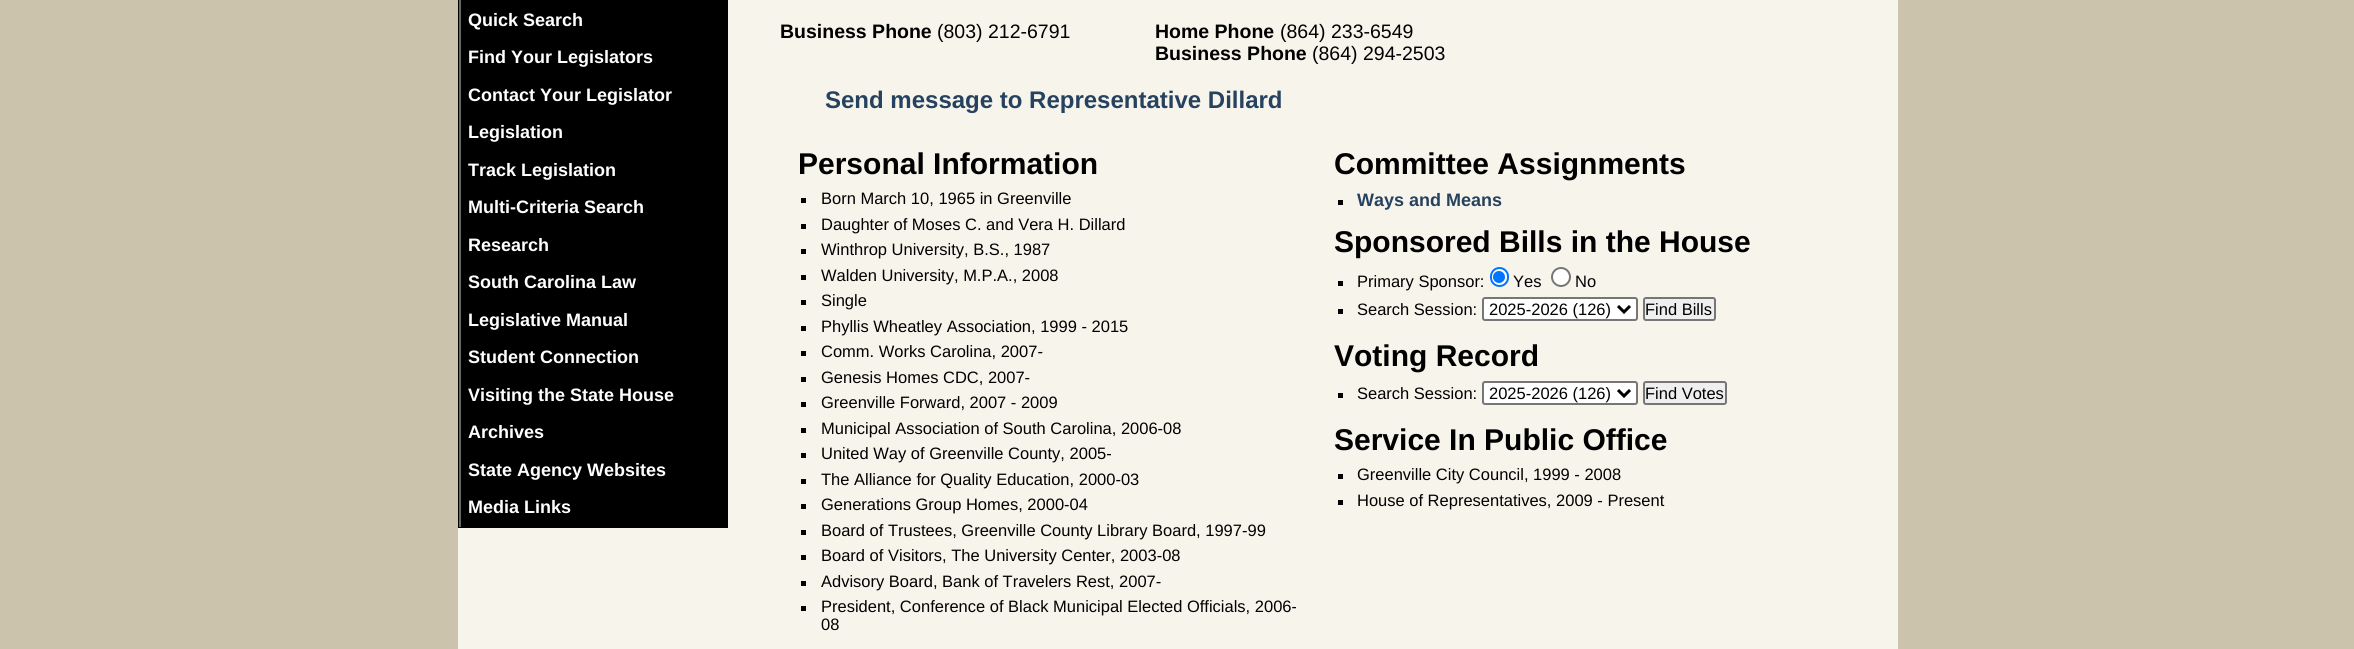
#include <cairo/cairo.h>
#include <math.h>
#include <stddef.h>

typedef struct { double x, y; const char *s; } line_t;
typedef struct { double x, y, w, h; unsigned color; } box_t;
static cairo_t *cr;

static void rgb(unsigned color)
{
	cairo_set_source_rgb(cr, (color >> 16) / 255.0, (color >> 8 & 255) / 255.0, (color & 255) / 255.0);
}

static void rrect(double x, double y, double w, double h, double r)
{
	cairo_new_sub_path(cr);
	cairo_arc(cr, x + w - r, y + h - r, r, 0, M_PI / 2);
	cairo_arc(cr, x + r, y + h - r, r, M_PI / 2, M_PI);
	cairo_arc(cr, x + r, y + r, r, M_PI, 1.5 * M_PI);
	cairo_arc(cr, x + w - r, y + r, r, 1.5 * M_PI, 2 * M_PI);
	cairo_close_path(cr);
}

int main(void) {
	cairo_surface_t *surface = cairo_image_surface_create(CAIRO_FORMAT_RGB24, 2354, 649);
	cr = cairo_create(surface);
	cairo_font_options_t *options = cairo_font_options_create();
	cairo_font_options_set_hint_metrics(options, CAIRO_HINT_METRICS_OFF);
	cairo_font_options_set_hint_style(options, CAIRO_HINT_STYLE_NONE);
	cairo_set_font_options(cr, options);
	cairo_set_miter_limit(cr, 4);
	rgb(0xcbc3ac);
	cairo_paint(cr);
	{
		static const box_t items[] = {
			{458, 0, 1440, 649, 0xf7f4ec},
			{458, 0, 270, 528, 0x000000},
			{459, 0, 2, 527, 0x666666},
			{801, 198, 5, 5, 0x000000},
			{801, 224, 5, 5, 0x000000},
			{801, 249, 5, 5, 0x000000},
			{801, 275, 5, 5, 0x000000},
			{801, 300, 5, 5, 0x000000},
			{801, 326, 5, 5, 0x000000},
			{801, 351, 5, 5, 0x000000},
			{801, 377, 5, 5, 0x000000},
			{801, 402, 5, 5, 0x000000},
			{801, 428, 5, 5, 0x000000},
			{801, 453, 5, 5, 0x000000},
			{801, 479, 5, 5, 0x000000},
			{801, 504, 5, 5, 0x000000},
			{801, 530, 5, 5, 0x000000},
			{801, 555, 5, 5, 0x000000},
			{801, 581, 5, 5, 0x000000},
			{801, 606, 5, 5, 0x000000},
			{1338, 200, 5, 5, 0x000000},
			{1338, 281, 5, 5, 0x000000},
		};
		for (size_t i = 0; i < sizeof items / sizeof *items; i++) {
			rgb(items[i].color);
			cairo_rectangle(cr, items[i].x, items[i].y, items[i].w, items[i].h);
			cairo_fill(cr);
		}
	}
	rgb(0xffffff);
	rrect(1491, 268, 17, 18, 8.5);
	cairo_fill_preserve(cr);
	rgb(0x0075ff);
	cairo_stroke(cr);
	cairo_arc(cr, 1499, 277, 6, 0, 2 * M_PI);
	cairo_fill(cr);
	rgb(0xffffff);
	cairo_arc(cr, 1561, 277, 9, 0, 2 * M_PI);
	cairo_fill_preserve(cr);
	rgb(0x767676);
	cairo_stroke(cr);
	rgb(0x000000);
	cairo_rectangle(cr, 1338, 309, 5, 5);
	cairo_fill(cr);
	rgb(0xffffff);
	rrect(1483, 298, 154, 22, 2);
	cairo_fill_preserve(cr);
	rgb(0x767676);
	cairo_stroke(cr);
	cairo_new_path(cr);
	cairo_move_to(cr, 1618, 306);
	cairo_line_to(cr, 1624, 312);
	cairo_line_to(cr, 1630, 306);
	rgb(0x000000);
	cairo_set_line_width(cr, 3);
	cairo_stroke(cr);
	rgb(0xefefef);
	rrect(1644, 298, 71, 22, 2);
	cairo_fill_preserve(cr);
	rgb(0x767676);
	cairo_set_line_width(cr, 2);
	cairo_stroke(cr);
	rgb(0x000000);
	cairo_rectangle(cr, 1338, 393, 5, 5);
	cairo_fill(cr);
	rgb(0xffffff);
	rrect(1483, 382, 154, 22, 2);
	cairo_fill_preserve(cr);
	rgb(0x767676);
	cairo_stroke(cr);
	cairo_new_path(cr);
	cairo_move_to(cr, 1618, 390);
	cairo_line_to(cr, 1624, 396);
	cairo_line_to(cr, 1630, 390);
	rgb(0x000000);
	cairo_set_line_width(cr, 3);
	cairo_stroke(cr);
	rgb(0xefefef);
	rrect(1644, 382, 82, 22, 2);
	cairo_fill_preserve(cr);
	rgb(0x767676);
	cairo_set_line_width(cr, 2);
	cairo_stroke(cr);
	rgb(0x000000);
	cairo_rectangle(cr, 1338, 474, 5, 5);
	cairo_fill(cr);
	cairo_rectangle(cr, 1338, 500, 5, 5);
	cairo_fill(cr);
	cairo_select_font_face(cr, "Liberation Sans", CAIRO_FONT_SLANT_NORMAL, CAIRO_FONT_WEIGHT_BOLD);
	cairo_set_font_size(cr, 18);
	rgb(0xffffff);
	{
		static const line_t items[] = {
			{468, 26, "Quick Search"},
			{468, 63, "Find Your Legislators"},
			{468, 101, "Contact Your Legislator"},
			{468, 138, "Legislation"},
			{468, 176, "Track Legislation"},
			{468, 213, "Multi-Criteria Search"},
			{468, 251, "Research"},
			{468, 288, "South Carolina Law"},
			{468, 326, "Legislative Manual"},
			{468, 363, "Student Connection"},
			{468, 401, "Visiting the State House"},
			{468, 438, "Archives"},
			{468, 476, "State Agency Websites"},
			{468, 513, "Media Links"},
		};
		for (size_t i = 0; i < sizeof items / sizeof *items; i++) {
			cairo_move_to(cr, items[i].x, items[i].y);
			cairo_show_text(cr, items[i].s);
		}
	}
	cairo_set_font_size(cr, 19.5);
	rgb(0x000000);
	cairo_move_to(cr, 780, 38);
	cairo_show_text(cr, "Business Phone");
	cairo_select_font_face(cr, "Liberation Sans", CAIRO_FONT_SLANT_NORMAL, CAIRO_FONT_WEIGHT_NORMAL);
	cairo_move_to(cr, 937, 38);
	cairo_show_text(cr, "(803) 212-6791");
	cairo_select_font_face(cr, "Liberation Sans", CAIRO_FONT_SLANT_NORMAL, CAIRO_FONT_WEIGHT_BOLD);
	cairo_move_to(cr, 1155, 38);
	cairo_show_text(cr, "Home Phone");
	cairo_select_font_face(cr, "Liberation Sans", CAIRO_FONT_SLANT_NORMAL, CAIRO_FONT_WEIGHT_NORMAL);
	cairo_move_to(cr, 1280, 38);
	cairo_show_text(cr, "(864) 233-6549");
	cairo_select_font_face(cr, "Liberation Sans", CAIRO_FONT_SLANT_NORMAL, CAIRO_FONT_WEIGHT_BOLD);
	cairo_move_to(cr, 1155, 60);
	cairo_show_text(cr, "Business Phone");
	cairo_select_font_face(cr, "Liberation Sans", CAIRO_FONT_SLANT_NORMAL, CAIRO_FONT_WEIGHT_NORMAL);
	cairo_move_to(cr, 1312, 60);
	cairo_show_text(cr, "(864) 294-2503");
	cairo_select_font_face(cr, "Liberation Sans", CAIRO_FONT_SLANT_NORMAL, CAIRO_FONT_WEIGHT_BOLD);
	cairo_set_font_size(cr, 24);
	rgb(0x26425f);
	cairo_move_to(cr, 825, 108);
	cairo_show_text(cr, "Send message to Representative Dillard");
	cairo_set_font_size(cr, 30);
	rgb(0x000000);
	cairo_move_to(cr, 798, 174);
	cairo_show_text(cr, "Personal Information");
	cairo_select_font_face(cr, "Liberation Sans", CAIRO_FONT_SLANT_NORMAL, CAIRO_FONT_WEIGHT_NORMAL);
	cairo_set_font_size(cr, 16.5);
	{
		static const line_t items[] = {
			{821, 204, "Born March 10, 1965 in Greenville"},
			{821, 230, "Daughter of Moses C. and Vera H. Dillard"},
			{821, 255, "Winthrop University, B.S., 1987"},
			{821, 281, "Walden University, M.P.A., 2008"},
			{821, 306, "Single"},
			{821, 332, "Phyllis Wheatley Association, 1999 - 2015"},
			{821, 357, "Comm. Works Carolina, 2007-"},
			{821, 383, "Genesis Homes CDC, 2007-"},
			{821, 408, "Greenville Forward, 2007 - 2009"},
			{821, 434, "Municipal Association of South Carolina, 2006-08"},
			{821, 459, "United Way of Greenville County, 2005-"},
			{821, 485, "The Alliance for Quality Education, 2000-03"},
			{821, 510, "Generations Group Homes, 2000-04"},
			{821, 536, "Board of Trustees, Greenville County Library Board, 1997-99"},
			{821, 561, "Board of Visitors, The University Center, 2003-08"},
			{821, 587, "Advisory Board, Bank of Travelers Rest, 2007-"},
			{821, 612, "President, Conference of Black Municipal Elected Officials, 2006-"},
			{821, 630, "08"},
		};
		for (size_t i = 0; i < sizeof items / sizeof *items; i++) {
			cairo_move_to(cr, items[i].x, items[i].y);
			cairo_show_text(cr, items[i].s);
		}
	}
	cairo_select_font_face(cr, "Liberation Sans", CAIRO_FONT_SLANT_NORMAL, CAIRO_FONT_WEIGHT_BOLD);
	cairo_set_font_size(cr, 30);
	cairo_move_to(cr, 1334, 174);
	cairo_show_text(cr, "Committee Assignments");
	cairo_set_font_size(cr, 18);
	rgb(0x26425f);
	cairo_move_to(cr, 1357, 206);
	cairo_show_text(cr, "Ways and Means");
	cairo_set_font_size(cr, 30);
	rgb(0x000000);
	cairo_move_to(cr, 1334, 252);
	cairo_show_text(cr, "Sponsored Bills in the House");
	cairo_select_font_face(cr, "Liberation Sans", CAIRO_FONT_SLANT_NORMAL, CAIRO_FONT_WEIGHT_NORMAL);
	cairo_set_font_size(cr, 16.5);
	{
		static const line_t items[] = {
			{1357, 287, "Primary Sponsor:"},
			{1513, 287, "Yes"},
			{1575, 287, "No"},
			{1357, 315, "Search Session:"},
			{1489, 315, "2025-2026 (126)"},
			{1645, 315, "Find Bills"},
		};
		for (size_t i = 0; i < sizeof items / sizeof *items; i++) {
			cairo_move_to(cr, items[i].x, items[i].y);
			cairo_show_text(cr, items[i].s);
		}
	}
	cairo_select_font_face(cr, "Liberation Sans", CAIRO_FONT_SLANT_NORMAL, CAIRO_FONT_WEIGHT_BOLD);
	cairo_set_font_size(cr, 30);
	cairo_move_to(cr, 1334, 366);
	cairo_show_text(cr, "Voting Record");
	cairo_select_font_face(cr, "Liberation Sans", CAIRO_FONT_SLANT_NORMAL, CAIRO_FONT_WEIGHT_NORMAL);
	cairo_set_font_size(cr, 16.5);
	{
		static const line_t items[] = {
			{1357, 399, "Search Session:"},
			{1489, 399, "2025-2026 (126)"},
			{1645, 399, "Find Votes"},
		};
		for (size_t i = 0; i < sizeof items / sizeof *items; i++) {
			cairo_move_to(cr, items[i].x, items[i].y);
			cairo_show_text(cr, items[i].s);
		}
	}
	cairo_select_font_face(cr, "Liberation Sans", CAIRO_FONT_SLANT_NORMAL, CAIRO_FONT_WEIGHT_BOLD);
	cairo_set_font_size(cr, 30);
	cairo_move_to(cr, 1334, 450);
	cairo_show_text(cr, "Service In Public Office");
	cairo_select_font_face(cr, "Liberation Sans", CAIRO_FONT_SLANT_NORMAL, CAIRO_FONT_WEIGHT_NORMAL);
	cairo_set_font_size(cr, 16.5);
	cairo_move_to(cr, 1357, 480);
	cairo_show_text(cr, "Greenville City Council, 1999 - 2008");
	cairo_move_to(cr, 1357, 506);
	cairo_show_text(cr, "House of Representatives, 2009 - Present");
	cairo_surface_write_to_png(surface, "page.png");
	cairo_font_options_destroy(options);
	cairo_destroy(cr);
	cairo_surface_destroy(surface);
	return 0;
}
